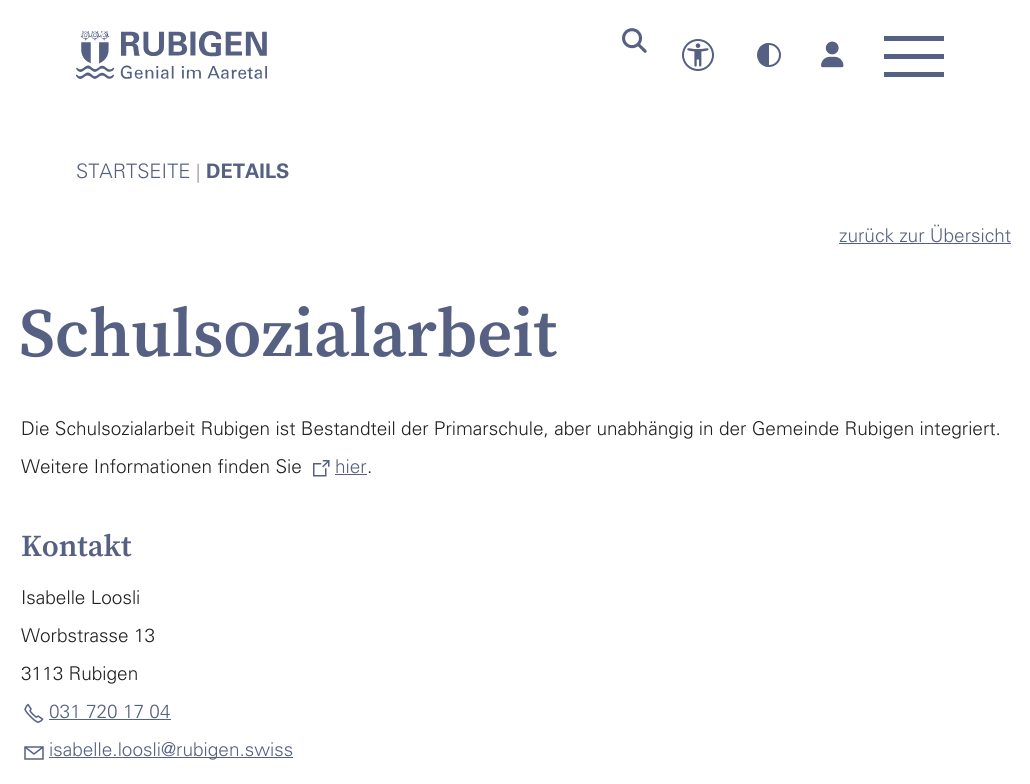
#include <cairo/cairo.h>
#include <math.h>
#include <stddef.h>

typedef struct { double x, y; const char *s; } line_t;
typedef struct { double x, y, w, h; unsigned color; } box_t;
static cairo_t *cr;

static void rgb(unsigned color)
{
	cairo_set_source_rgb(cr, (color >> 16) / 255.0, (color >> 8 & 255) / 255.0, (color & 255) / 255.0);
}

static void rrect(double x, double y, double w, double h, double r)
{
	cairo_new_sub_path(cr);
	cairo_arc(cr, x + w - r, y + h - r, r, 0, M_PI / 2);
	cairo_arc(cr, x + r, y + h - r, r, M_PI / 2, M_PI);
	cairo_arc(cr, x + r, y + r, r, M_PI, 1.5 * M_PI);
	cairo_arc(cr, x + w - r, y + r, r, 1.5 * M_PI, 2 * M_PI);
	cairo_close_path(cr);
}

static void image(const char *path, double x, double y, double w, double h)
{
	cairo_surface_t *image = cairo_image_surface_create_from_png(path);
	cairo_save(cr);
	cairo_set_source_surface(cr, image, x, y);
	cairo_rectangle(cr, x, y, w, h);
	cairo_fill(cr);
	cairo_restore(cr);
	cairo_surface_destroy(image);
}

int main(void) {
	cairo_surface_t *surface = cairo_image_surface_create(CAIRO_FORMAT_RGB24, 1030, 784);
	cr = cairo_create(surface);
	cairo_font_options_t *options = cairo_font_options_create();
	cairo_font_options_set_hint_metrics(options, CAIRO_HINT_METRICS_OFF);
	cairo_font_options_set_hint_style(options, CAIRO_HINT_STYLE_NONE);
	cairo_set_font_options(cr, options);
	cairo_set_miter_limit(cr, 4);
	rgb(0xffffff);
	cairo_paint(cr);
	image("img/1.png", 76, 31, 191, 48);
	image("img/2.png", 622, 28, 25, 25);
	image("img/3.png", 687, 43, 22, 24);
	cairo_arc(cr, 698, 55, 15, 0, 2 * M_PI);
	rgb(0x556082);
	cairo_stroke(cr);
	cairo_save(cr);
	rrect(757, 43, 24, 24, 12);
	cairo_clip(cr);
	cairo_rectangle(cr, 759, 43, 10, 24);
	cairo_fill(cr);
	cairo_restore(cr);
	cairo_arc(cr, 769, 55, 11, 0, 2 * M_PI);
	cairo_stroke(cr);
	image("img/4.png", 821, 41, 23, 27);
	{
		static const box_t items[] = {
			{884, 36, 60, 5, 0x556082},
			{884, 54, 60, 5, 0x556082},
			{884, 72, 60, 5, 0x556082},
			{839, 243, 172, 1, 0x556082},
		};
		for (size_t i = 0; i < sizeof items / sizeof *items; i++) {
			rgb(items[i].color);
			cairo_rectangle(cr, items[i].x, items[i].y, items[i].w, items[i].h);
			cairo_fill(cr);
		}
	}
	image("img/5.png", 313, 460, 17, 17);
	cairo_rectangle(cr, 335, 474, 32, 1);
	cairo_fill(cr);
	image("img/6.png", 24, 703, 20, 20);
	cairo_rectangle(cr, 49, 719, 122, 1);
	cairo_fill(cr);
	cairo_new_path(cr);
	cairo_move_to(cr, 25, 747);
	cairo_line_to(cr, 43, 747);
	cairo_line_to(cr, 43, 759);
	cairo_line_to(cr, 25, 759);
	cairo_close_path(cr);
	cairo_move_to(cr, 25, 747);
	cairo_line_to(cr, 34, 754);
	cairo_line_to(cr, 43, 747);
	cairo_set_line_width(cr, 1.5);
	cairo_stroke(cr);
	cairo_rectangle(cr, 49, 757, 244, 1);
	cairo_fill(cr);
	cairo_select_font_face(cr, "Univers Light", CAIRO_FONT_SLANT_NORMAL, CAIRO_FONT_WEIGHT_NORMAL);
	cairo_set_font_size(cr, 20);
	cairo_move_to(cr, 76, 178);
	cairo_show_text(cr, "STARTSEITE");
	cairo_set_font_size(cr, 19);
	rgb(0x909090);
	cairo_move_to(cr, 196, 178);
	cairo_show_text(cr, "|");
	cairo_select_font_face(cr, "Univers", CAIRO_FONT_SLANT_NORMAL, CAIRO_FONT_WEIGHT_BOLD);
	cairo_set_font_size(cr, 20);
	rgb(0x556082);
	cairo_move_to(cr, 206, 178);
	cairo_show_text(cr, "DETAILS");
	cairo_select_font_face(cr, "Univers Light", CAIRO_FONT_SLANT_NORMAL, CAIRO_FONT_WEIGHT_NORMAL);
	cairo_set_font_size(cr, 19);
	cairo_move_to(cr, 839, 242);
	cairo_show_text(cr, "zurück zur Übersicht");
	cairo_select_font_face(cr, "Source Serif Pro SemiBold", CAIRO_FONT_SLANT_NORMAL, CAIRO_FONT_WEIGHT_NORMAL);
	cairo_set_font_size(cr, 68.5);
	cairo_move_to(cr, 19, 356);
	cairo_show_text(cr, "Schulsozialarbeit");
	cairo_select_font_face(cr, "Univers Light", CAIRO_FONT_SLANT_NORMAL, CAIRO_FONT_WEIGHT_NORMAL);
	cairo_set_font_size(cr, 19);
	rgb(0x202020);
	cairo_move_to(cr, 21, 435);
	cairo_show_text(cr, "Die Schulsozialarbeit Rubigen ist Bestandteil der Primarschule, aber unabhängig in der Gemeinde Rubigen integriert.");
	cairo_move_to(cr, 21, 473);
	cairo_show_text(cr, "Weitere Informationen finden Sie");
	rgb(0x556082);
	cairo_move_to(cr, 335, 473);
	cairo_show_text(cr, "hier");
	rgb(0x202020);
	cairo_move_to(cr, 367, 473);
	cairo_show_text(cr, ".");
	cairo_select_font_face(cr, "Source Serif Pro SemiBold", CAIRO_FONT_SLANT_NORMAL, CAIRO_FONT_WEIGHT_NORMAL);
	cairo_set_font_size(cr, 30.5);
	rgb(0x556082);
	cairo_move_to(cr, 21, 556);
	cairo_show_text(cr, "Kontakt");
	cairo_select_font_face(cr, "Univers Light", CAIRO_FONT_SLANT_NORMAL, CAIRO_FONT_WEIGHT_NORMAL);
	cairo_set_font_size(cr, 19);
	rgb(0x202020);
	{
		static const line_t items[] = {
			{21, 604, "Isabelle Loosli"},
			{21, 642, "Worbstrasse 13"},
			{21, 680, "3113 Rubigen"},
		};
		for (size_t i = 0; i < sizeof items / sizeof *items; i++) {
			cairo_move_to(cr, items[i].x, items[i].y);
			cairo_show_text(cr, items[i].s);
		}
	}
	rgb(0x556082);
	cairo_move_to(cr, 49, 718);
	cairo_show_text(cr, "031 720 17 04");
	cairo_move_to(cr, 49, 756);
	cairo_show_text(cr, "isabelle.loosli@rubigen.swiss");
	cairo_surface_write_to_png(surface, "page.png");
	cairo_font_options_destroy(options);
	cairo_destroy(cr);
	cairo_surface_destroy(surface);
	return 0;
}
